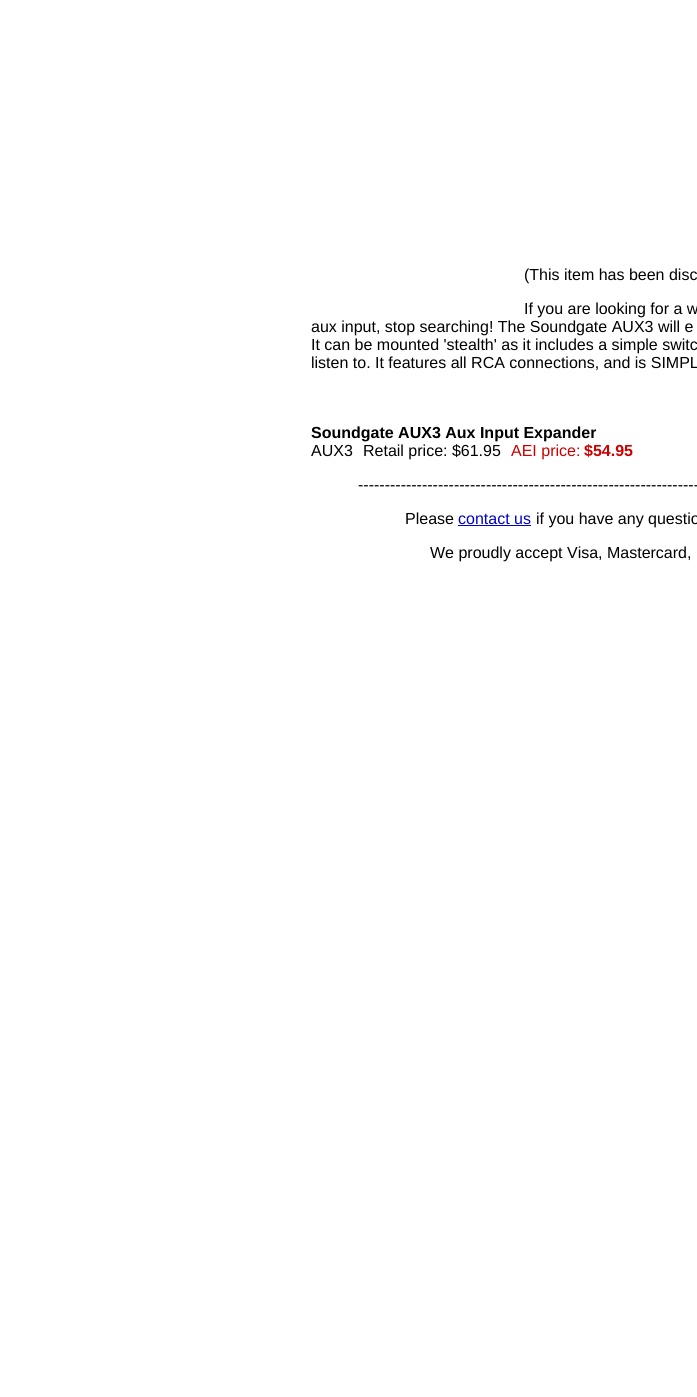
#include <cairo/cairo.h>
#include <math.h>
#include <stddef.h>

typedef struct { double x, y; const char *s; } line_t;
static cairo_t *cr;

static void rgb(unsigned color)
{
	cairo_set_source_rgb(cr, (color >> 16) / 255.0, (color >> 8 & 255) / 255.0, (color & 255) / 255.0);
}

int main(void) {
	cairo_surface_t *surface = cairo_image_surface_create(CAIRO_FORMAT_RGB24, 697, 1397);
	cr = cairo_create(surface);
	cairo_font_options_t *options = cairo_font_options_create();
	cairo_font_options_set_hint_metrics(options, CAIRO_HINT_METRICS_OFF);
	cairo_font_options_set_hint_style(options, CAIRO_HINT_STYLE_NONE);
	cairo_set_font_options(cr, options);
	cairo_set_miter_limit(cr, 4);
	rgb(0xffffff);
	cairo_paint(cr);
	rgb(0x0000cc);
	cairo_rectangle(cr, 458, 525, 73, 1);
	cairo_fill(cr);
	cairo_select_font_face(cr, "Liberation Sans", CAIRO_FONT_SLANT_NORMAL, CAIRO_FONT_WEIGHT_NORMAL);
	cairo_set_font_size(cr, 16);
	rgb(0x000000);
	{
		static const line_t items[] = {
			{524, 280, "(This item has been disc"},
			{524, 314, "If you are looking for a w"},
			{311, 332, "aux input, stop searching! The Soundgate AUX3 will e"},
			{311, 350, "It can be mounted 'stealth' as it includes a simple switc"},
			{311, 368, "listen to. It features all RCA connections, and is SIMPL"},
		};
		for (size_t i = 0; i < sizeof items / sizeof *items; i++) {
			cairo_move_to(cr, items[i].x, items[i].y);
			cairo_show_text(cr, items[i].s);
		}
	}
	cairo_select_font_face(cr, "Liberation Sans", CAIRO_FONT_SLANT_NORMAL, CAIRO_FONT_WEIGHT_BOLD);
	cairo_move_to(cr, 311, 438);
	cairo_show_text(cr, "Soundgate AUX3 Aux Input Expander");
	cairo_select_font_face(cr, "Liberation Sans", CAIRO_FONT_SLANT_NORMAL, CAIRO_FONT_WEIGHT_NORMAL);
	cairo_move_to(cr, 311, 456);
	cairo_show_text(cr, "AUX3");
	cairo_move_to(cr, 363, 456);
	cairo_show_text(cr, "Retail price: $61.95");
	rgb(0xcc0000);
	cairo_move_to(cr, 511, 456);
	cairo_show_text(cr, "AEI price:");
	cairo_select_font_face(cr, "Liberation Sans", CAIRO_FONT_SLANT_NORMAL, CAIRO_FONT_WEIGHT_BOLD);
	cairo_move_to(cr, 584, 456);
	cairo_show_text(cr, "$54.95");
	cairo_select_font_face(cr, "Liberation Sans", CAIRO_FONT_SLANT_NORMAL, CAIRO_FONT_WEIGHT_NORMAL);
	rgb(0x000000);
	cairo_move_to(cr, 358, 490);
	cairo_show_text(cr, "----------------------------------------------------------------");
	cairo_move_to(cr, 405, 524);
	cairo_show_text(cr, "Please");
	rgb(0x0000cc);
	cairo_move_to(cr, 458, 524);
	cairo_show_text(cr, "contact us");
	rgb(0x000000);
	cairo_move_to(cr, 536, 524);
	cairo_show_text(cr, "if you have any questio");
	cairo_move_to(cr, 430, 558);
	cairo_show_text(cr, "We proudly accept Visa, Mastercard,");
	cairo_surface_write_to_png(surface, "page.png");
	cairo_font_options_destroy(options);
	cairo_destroy(cr);
	cairo_surface_destroy(surface);
	return 0;
}
